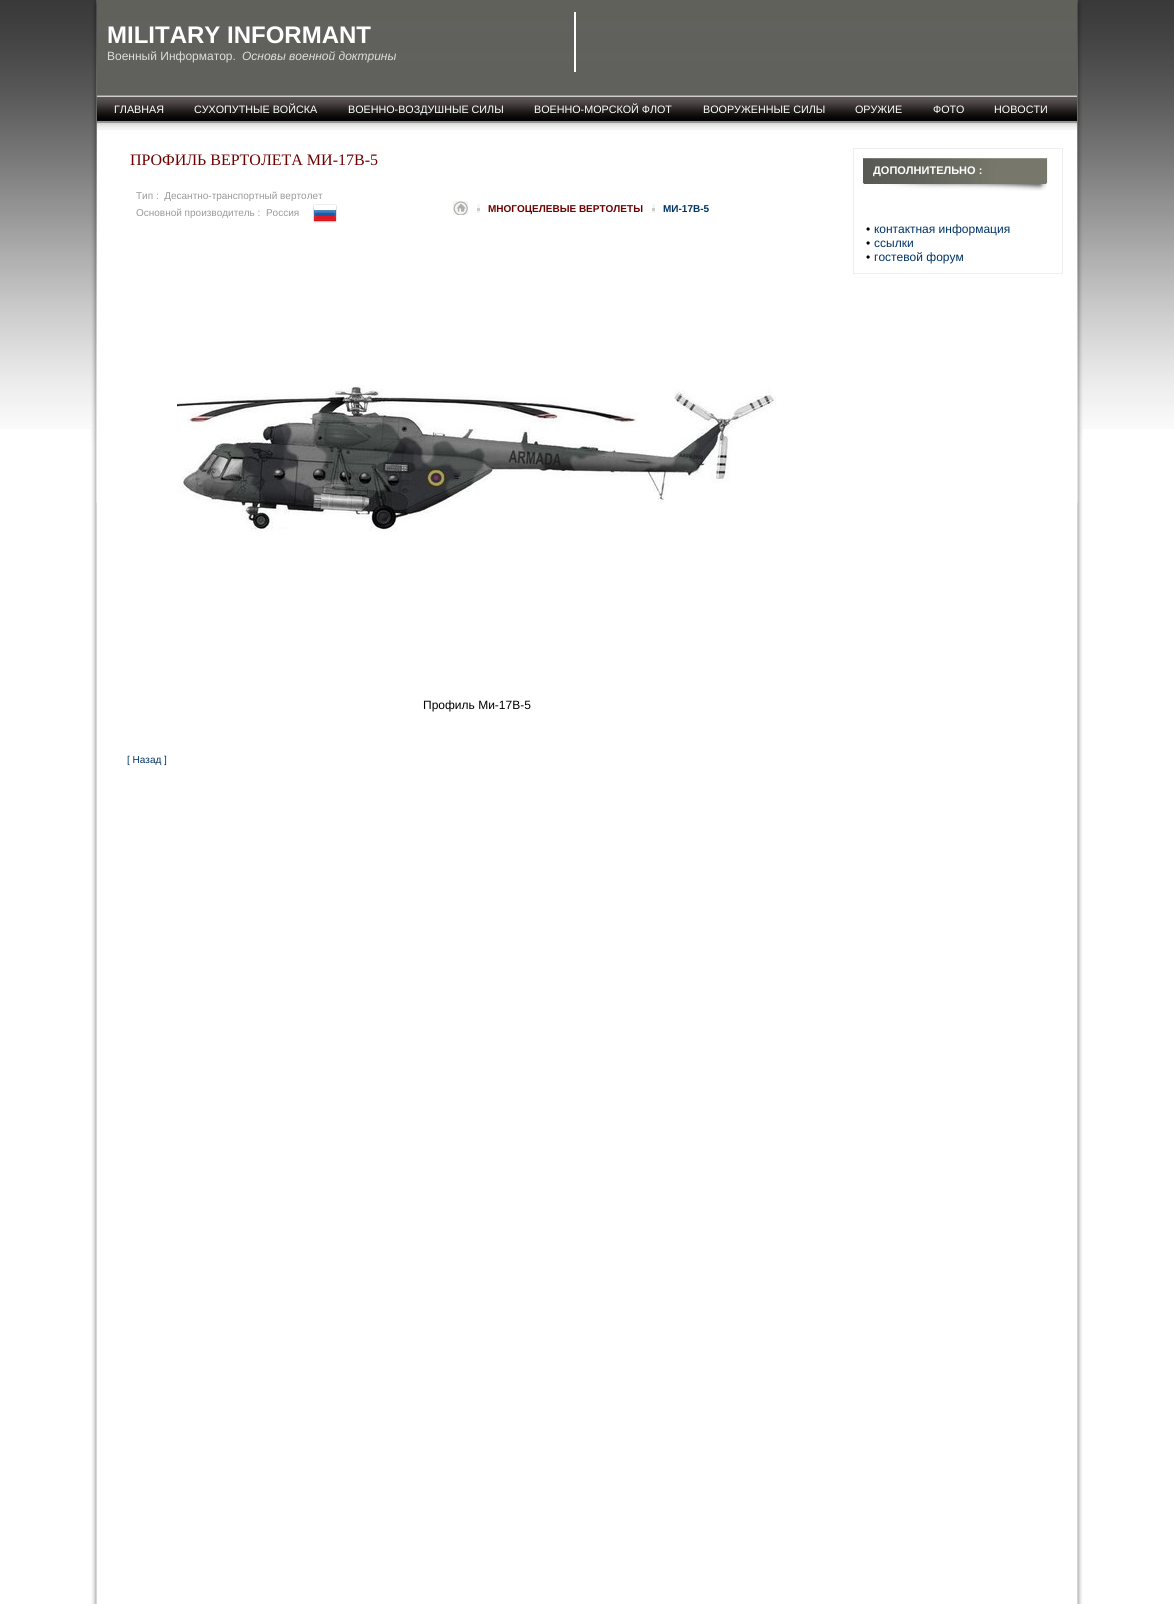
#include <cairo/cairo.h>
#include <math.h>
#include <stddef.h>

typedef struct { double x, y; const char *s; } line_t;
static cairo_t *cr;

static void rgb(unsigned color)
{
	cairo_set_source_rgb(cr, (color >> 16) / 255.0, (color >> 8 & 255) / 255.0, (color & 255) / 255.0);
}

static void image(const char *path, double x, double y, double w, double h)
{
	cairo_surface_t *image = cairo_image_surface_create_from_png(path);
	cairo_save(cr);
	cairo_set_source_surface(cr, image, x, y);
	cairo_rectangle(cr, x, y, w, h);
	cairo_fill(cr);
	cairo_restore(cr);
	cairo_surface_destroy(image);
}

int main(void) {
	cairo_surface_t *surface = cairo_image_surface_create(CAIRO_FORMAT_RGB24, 1174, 1604);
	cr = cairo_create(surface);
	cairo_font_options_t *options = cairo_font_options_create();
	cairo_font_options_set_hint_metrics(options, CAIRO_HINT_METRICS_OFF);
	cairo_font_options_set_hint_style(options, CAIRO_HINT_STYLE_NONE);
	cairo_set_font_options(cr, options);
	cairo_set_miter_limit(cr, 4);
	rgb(0xffffff);
	cairo_paint(cr);
	image("img/1.png", 0, 0, 1174, 429);
	image("img/2.png", 91, 503, 992, 1101);
	image("img/3.png", 91, 0, 992, 503);
	image("img/4.png", 97, 0, 980, 96);
	rgb(0xffffff);
	cairo_rectangle(cr, 574, 12, 2, 60);
	cairo_fill(cr);
	image("img/5.png", 97, 96, 980, 27);
	image("img/6.png", 97, 123, 980, 7);
	image("img/7.png", 313, 204, 24, 19);
	image("img/8.png", 453, 201, 15, 14);
	image("img/9.png", 477, 204, 3, 9);
	image("img/9.png", 652, 204, 3, 9);
	image("img/10.png", 177, 383, 600, 149);
	cairo_rectangle(cr, 853.5, 148.5, 209, 125);
	rgb(0xeeeeee);
	cairo_set_line_width(cr, 1);
	cairo_stroke(cr);
	image("img/11.png", 863, 158, 187, 33);
	cairo_select_font_face(cr, "Liberation Sans", CAIRO_FONT_SLANT_NORMAL, CAIRO_FONT_WEIGHT_BOLD);
	cairo_set_font_size(cr, 24);
	rgb(0xffffff);
	cairo_move_to(cr, 107, 43);
	cairo_show_text(cr, "MILITARY INFORMANT");
	cairo_select_font_face(cr, "Liberation Sans", CAIRO_FONT_SLANT_NORMAL, CAIRO_FONT_WEIGHT_NORMAL);
	cairo_set_font_size(cr, 12);
	rgb(0xdddddd);
	cairo_move_to(cr, 107, 60);
	cairo_show_text(cr, "Военный Информатор.");
	cairo_select_font_face(cr, "Liberation Sans", CAIRO_FONT_SLANT_ITALIC, CAIRO_FONT_WEIGHT_NORMAL);
	cairo_move_to(cr, 242, 60);
	cairo_show_text(cr, "Основы военной доктрины");
	cairo_select_font_face(cr, "Liberation Sans", CAIRO_FONT_SLANT_NORMAL, CAIRO_FONT_WEIGHT_NORMAL);
	cairo_set_font_size(cr, 10.75);
	rgb(0xffffff);
	{
		static const line_t items[] = {
			{114, 113, "ГЛАВНАЯ"},
			{194, 113, "СУХОПУТНЫЕ ВОЙСКА"},
			{348, 113, "ВОЕННО-ВОЗДУШНЫЕ СИЛЫ"},
			{534, 113, "ВОЕННО-МОРСКОЙ ФЛОТ"},
			{703, 113, "ВООРУЖЕННЫЕ СИЛЫ"},
			{855, 113, "ОРУЖИЕ"},
			{933, 113, "ФОТО"},
			{994, 113, "НОВОСТИ"},
		};
		for (size_t i = 0; i < sizeof items / sizeof *items; i++) {
			cairo_move_to(cr, items[i].x, items[i].y);
			cairo_show_text(cr, items[i].s);
		}
	}
	cairo_select_font_face(cr, "Liberation Serif", CAIRO_FONT_SLANT_NORMAL, CAIRO_FONT_WEIGHT_NORMAL);
	cairo_set_font_size(cr, 16);
	rgb(0x6e0000);
	cairo_move_to(cr, 130, 165);
	cairo_show_text(cr, "ПРОФИЛЬ ВЕРТОЛЕТА МИ-17В-5");
	cairo_select_font_face(cr, "Liberation Sans", CAIRO_FONT_SLANT_NORMAL, CAIRO_FONT_WEIGHT_NORMAL);
	cairo_set_font_size(cr, 10);
	rgb(0x999999);
	cairo_move_to(cr, 136, 199);
	cairo_show_text(cr, "Тип :  Десантно-транспортный вертолет");
	cairo_move_to(cr, 136, 216);
	cairo_show_text(cr, "Основной производитель :  Россия");
	cairo_select_font_face(cr, "Liberation Sans", CAIRO_FONT_SLANT_NORMAL, CAIRO_FONT_WEIGHT_BOLD);
	rgb(0x6e0000);
	cairo_move_to(cr, 488, 212);
	cairo_show_text(cr, "МНОГОЦЕЛЕВЫЕ ВЕРТОЛЕТЫ");
	rgb(0x003366);
	cairo_move_to(cr, 663, 212);
	cairo_show_text(cr, "МИ-17В-5");
	cairo_select_font_face(cr, "Liberation Sans", CAIRO_FONT_SLANT_NORMAL, CAIRO_FONT_WEIGHT_NORMAL);
	cairo_set_font_size(cr, 12);
	rgb(0x000000);
	cairo_move_to(cr, 423, 709);
	cairo_show_text(cr, "Профиль Ми-17В-5");
	cairo_set_font_size(cr, 10);
	rgb(0x003366);
	cairo_move_to(cr, 127, 763);
	cairo_show_text(cr, "[ Назад ]");
	cairo_select_font_face(cr, "Liberation Sans", CAIRO_FONT_SLANT_NORMAL, CAIRO_FONT_WEIGHT_BOLD);
	cairo_set_font_size(cr, 11);
	rgb(0xffffff);
	cairo_move_to(cr, 873, 174);
	cairo_show_text(cr, "ДОПОЛНИТЕЛЬНО :");
	cairo_select_font_face(cr, "Liberation Sans", CAIRO_FONT_SLANT_NORMAL, CAIRO_FONT_WEIGHT_NORMAL);
	cairo_set_font_size(cr, 12);
	rgb(0x000000);
	cairo_move_to(cr, 866, 233);
	cairo_show_text(cr, "•");
	rgb(0x003366);
	cairo_move_to(cr, 874, 233);
	cairo_show_text(cr, "контактная информация");
	rgb(0x000000);
	cairo_move_to(cr, 866, 247);
	cairo_show_text(cr, "•");
	rgb(0x003366);
	cairo_move_to(cr, 874, 247);
	cairo_show_text(cr, "ссылки");
	rgb(0x000000);
	cairo_move_to(cr, 866, 261);
	cairo_show_text(cr, "•");
	rgb(0x003366);
	cairo_move_to(cr, 874, 261);
	cairo_show_text(cr, "гостевой форум");
	cairo_surface_write_to_png(surface, "page.png");
	cairo_font_options_destroy(options);
	cairo_destroy(cr);
	cairo_surface_destroy(surface);
	return 0;
}
